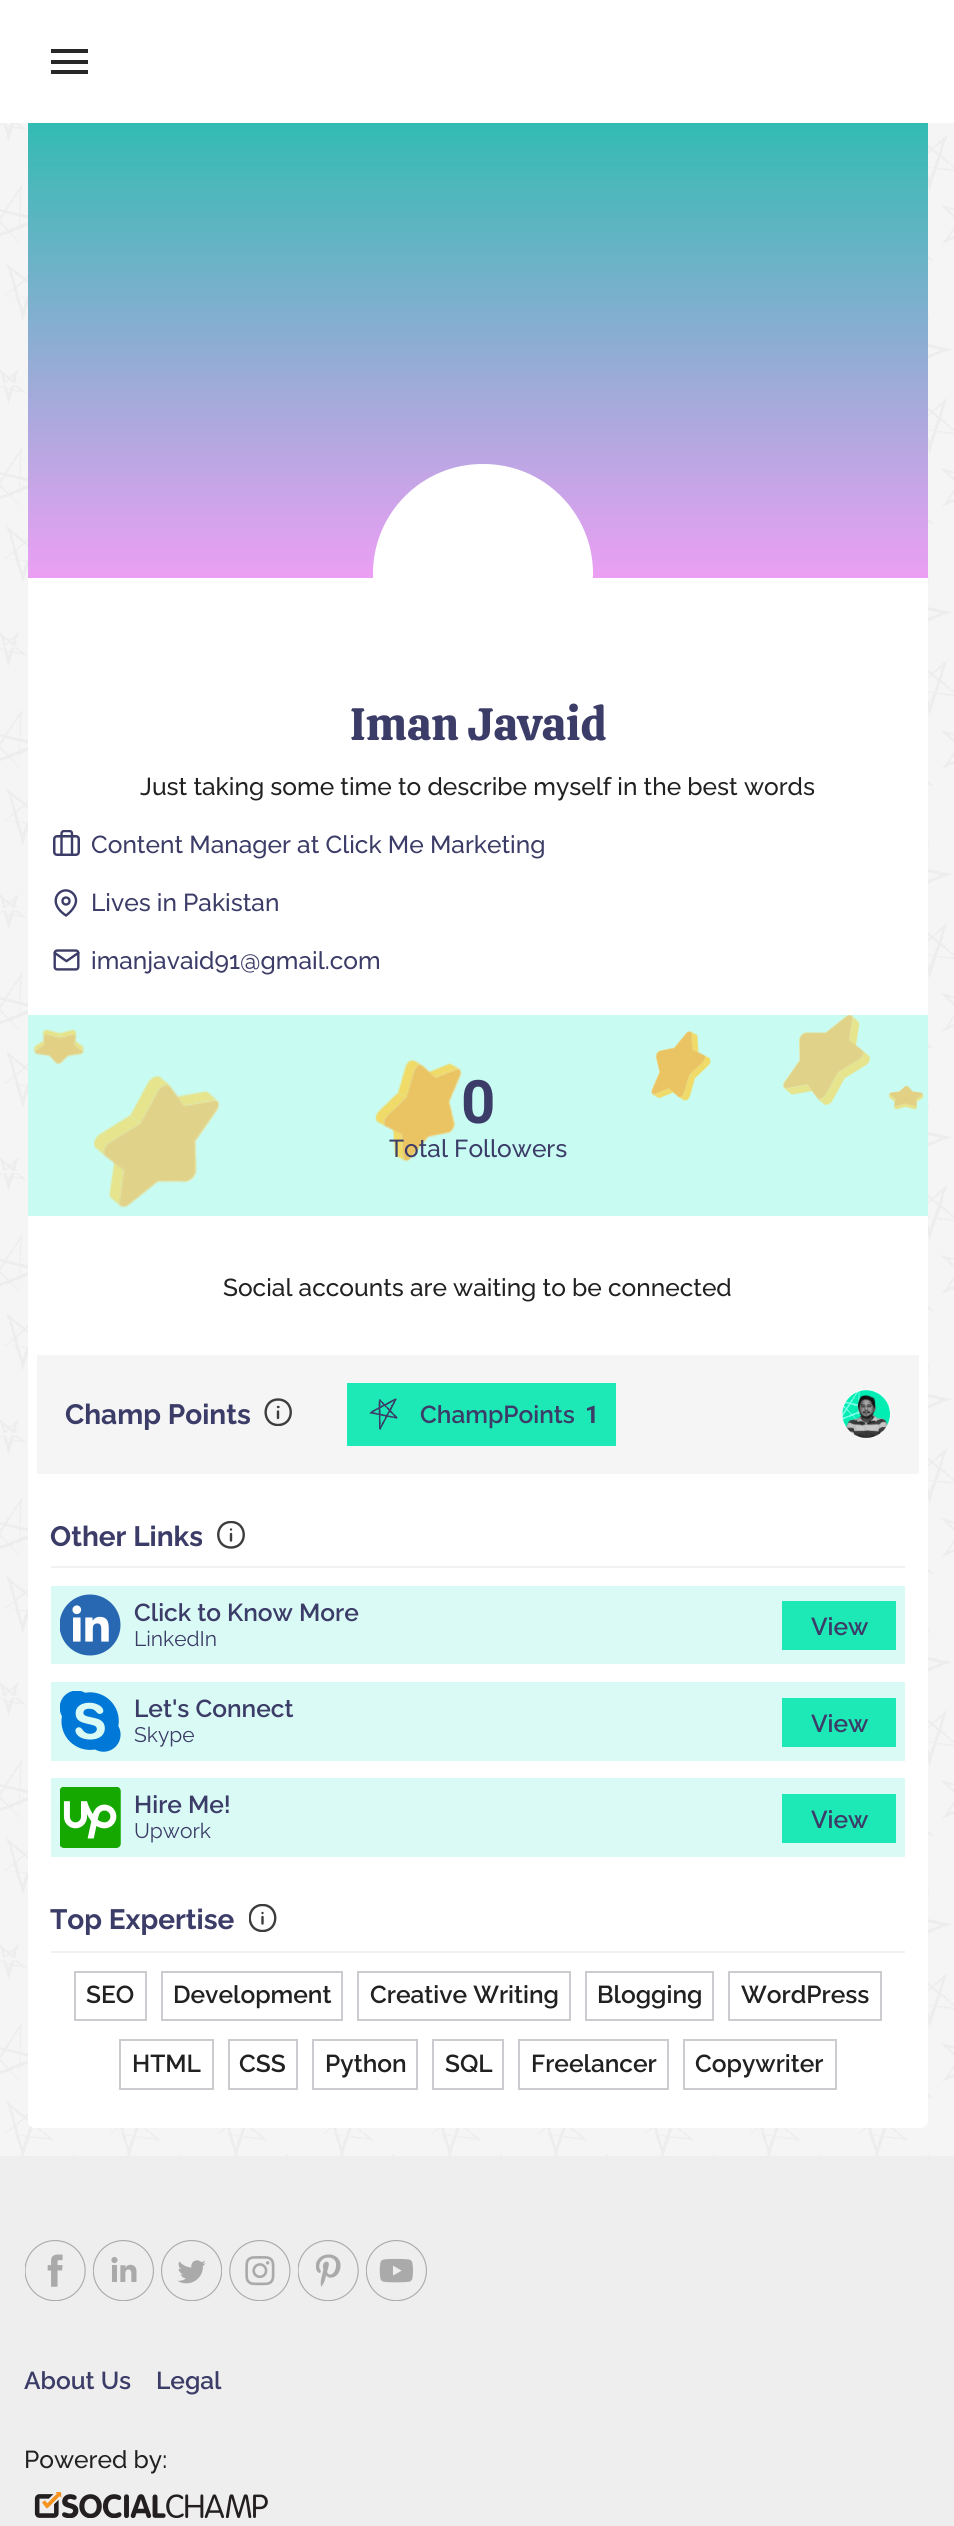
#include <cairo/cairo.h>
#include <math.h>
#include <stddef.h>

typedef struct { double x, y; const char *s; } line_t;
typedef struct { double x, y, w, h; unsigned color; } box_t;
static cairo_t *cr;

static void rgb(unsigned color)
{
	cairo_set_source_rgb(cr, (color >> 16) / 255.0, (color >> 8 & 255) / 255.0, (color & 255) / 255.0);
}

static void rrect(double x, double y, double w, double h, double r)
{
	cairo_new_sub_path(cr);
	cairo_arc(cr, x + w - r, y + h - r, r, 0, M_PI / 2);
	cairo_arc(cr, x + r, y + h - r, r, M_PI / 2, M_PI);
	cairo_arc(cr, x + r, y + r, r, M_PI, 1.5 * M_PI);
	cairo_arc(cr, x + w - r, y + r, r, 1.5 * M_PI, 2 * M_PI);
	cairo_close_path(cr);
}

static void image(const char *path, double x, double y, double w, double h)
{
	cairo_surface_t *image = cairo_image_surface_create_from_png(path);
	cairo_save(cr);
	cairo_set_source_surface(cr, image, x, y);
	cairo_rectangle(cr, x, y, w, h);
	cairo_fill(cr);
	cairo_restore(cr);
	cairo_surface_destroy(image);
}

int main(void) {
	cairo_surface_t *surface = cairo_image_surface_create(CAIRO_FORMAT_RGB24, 954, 2526);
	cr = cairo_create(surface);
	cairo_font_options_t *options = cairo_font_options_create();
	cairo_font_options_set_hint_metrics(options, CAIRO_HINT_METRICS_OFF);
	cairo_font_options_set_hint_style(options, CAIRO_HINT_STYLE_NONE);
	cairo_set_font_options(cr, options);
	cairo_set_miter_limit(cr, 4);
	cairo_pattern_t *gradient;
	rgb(0xffffff);
	cairo_paint(cr);
	{
		static const box_t items[] = {
			{51, 49, 37, 4, 0x272727},
			{51, 60, 37, 4, 0x272727},
			{51, 70, 37, 4, 0x272727},
			{0, 123, 954, 2033, 0xf5f5f5},
		};
		for (size_t i = 0; i < sizeof items / sizeof *items; i++) {
			rgb(items[i].color);
			cairo_rectangle(cr, items[i].x, items[i].y, items[i].w, items[i].h);
			cairo_fill(cr);
		}
	}
	image("img/1.png", 0, 123, 954, 2033);
	rgb(0xffffff);
	rrect(28, 123, 900, 2005, 7);
	cairo_fill(cr);
	gradient = cairo_pattern_create_linear(478, 122, 478, 578);
	cairo_pattern_add_color_stop_rgba(gradient, 0, 0.2, 0.733, 0.702, 1);
	cairo_pattern_add_color_stop_rgba(gradient, 1, 0.925, 0.624, 0.957, 1);
	cairo_set_source(cr, gradient);
	cairo_pattern_destroy(gradient);
	cairo_rectangle(cr, 28, 123, 900, 455);
	cairo_fill(cr);
	rgb(0xffffff);
	rrect(373, 464, 220, 219, 109.5);
	cairo_fill(cr);
	rrect(54.25, 836.25, 24.5, 18.5, 2.75);
	rgb(0x3c3c68);
	cairo_set_line_width(cr, 2.5);
	cairo_stroke(cr);
	cairo_save(cr);
	cairo_rectangle(cr, 51, 830, 31, 31);
	cairo_clip(cr);
	cairo_new_path(cr);
	cairo_move_to(cr, 72, 854.5);
	cairo_line_to(cr, 72, 833.5);
	cairo_curve_to(cr, 72, 832, 71, 831, 69.5, 831);
	cairo_line_to(cr, 64, 831);
	cairo_curve_to(cr, 63, 831, 61.5, 832, 61.5, 833.5);
	cairo_line_to(cr, 61.5, 854.5);
	cairo_set_line_width(cr, 2.4);
	cairo_set_line_cap(cr, CAIRO_LINE_CAP_ROUND);
	cairo_set_line_join(cr, CAIRO_LINE_JOIN_ROUND);
	cairo_stroke(cr);
	cairo_restore(cr);
	cairo_new_path(cr);
	cairo_move_to(cr, 76, 900.5);
	cairo_curve_to(cr, 76, 908.5, 66, 915.5, 66, 915.5);
	cairo_curve_to(cr, 44, 901, 62.5, 883, 73, 893.5);
	cairo_curve_to(cr, 75, 895.5, 76, 898, 76, 900.5);
	cairo_close_path(cr);
	cairo_set_line_width(cr, 2.4);
	cairo_set_line_cap(cr, CAIRO_LINE_CAP_ROUND);
	cairo_set_line_join(cr, CAIRO_LINE_JOIN_ROUND);
	cairo_stroke(cr);
	cairo_arc(cr, 66, 901, 3.5, 0, 2 * M_PI);
	cairo_set_line_cap(cr, CAIRO_LINE_CAP_BUTT);
	cairo_set_line_join(cr, CAIRO_LINE_JOIN_MITER);
	cairo_stroke(cr);
	image("img/2.png", 53, 949, 27, 22);
	rgb(0xc8fcf2);
	cairo_rectangle(cr, 28, 1015, 900, 201);
	cairo_fill(cr);
	image("img/3.png", 33, 1029, 429, 179);
	image("img/4.png", 651, 1015, 273, 95);
	rgb(0xf5f5f5);
	cairo_rectangle(cr, 37, 1355, 882, 119);
	cairo_fill(cr);
	cairo_save(cr);
	cairo_rectangle(cr, 264, 1398, 28, 28);
	cairo_clip(cr);
	cairo_new_path(cr);
	cairo_move_to(cr, 278, 1425);
	cairo_curve_to(cr, 261.5, 1425, 261.5, 1399.5, 278, 1399.5);
	cairo_curve_to(cr, 295, 1399.5, 295, 1425, 278, 1425);
	cairo_close_path(cr);
	rgb(0x3d3d3d);
	cairo_set_line_cap(cr, CAIRO_LINE_CAP_ROUND);
	cairo_set_line_join(cr, CAIRO_LINE_JOIN_ROUND);
	cairo_stroke(cr);
	cairo_restore(cr);
	cairo_new_path(cr);
	cairo_move_to(cr, 278, 1418);
	cairo_line_to(cr, 278, 1411.5);
	cairo_move_to(cr, 278.5, 1407);
	cairo_line_to(cr, 278, 1407);
	rgb(0x3d3d3d);
	cairo_set_line_cap(cr, CAIRO_LINE_CAP_ROUND);
	cairo_set_line_join(cr, CAIRO_LINE_JOIN_ROUND);
	cairo_stroke(cr);
	rgb(0x1de9b6);
	cairo_rectangle(cr, 347, 1383, 269, 63);
	cairo_fill(cr);
	image("img/5.png", 369, 1398, 29, 33);
	image("img/6.png", 842, 1390, 49, 48);
	rgb(0xf2f2f2);
	cairo_rectangle(cr, 51, 1566, 854, 2);
	cairo_fill(cr);
	cairo_save(cr);
	cairo_rectangle(cr, 217, 1521, 28, 28);
	cairo_clip(cr);
	cairo_new_path(cr);
	cairo_move_to(cr, 231, 1547.5);
	cairo_curve_to(cr, 214, 1547.5, 214, 1522, 231, 1522);
	cairo_curve_to(cr, 248, 1522, 248, 1547.5, 231, 1547.5);
	cairo_close_path(cr);
	rgb(0x3d3d3d);
	cairo_stroke(cr);
	cairo_restore(cr);
	cairo_new_path(cr);
	cairo_move_to(cr, 231, 1540.5);
	cairo_line_to(cr, 231, 1534);
	cairo_move_to(cr, 231, 1529.5);
	cairo_line_to(cr, 231, 1529.5);
	rgb(0x3d3d3d);
	cairo_stroke(cr);
	rgb(0xdafbf5);
	cairo_rectangle(cr, 51, 1586, 854, 78);
	cairo_fill(cr);
	image("img/7.png", 60, 1594, 61, 62);
	rgb(0x1de9b6);
	cairo_rectangle(cr, 782, 1601, 114, 49);
	cairo_fill(cr);
	rgb(0xdafbf5);
	cairo_rectangle(cr, 51, 1682, 854, 79);
	cairo_fill(cr);
	image("img/8.png", 60, 1691, 61, 61);
	rgb(0x1de9b6);
	cairo_rectangle(cr, 782, 1698, 114, 49);
	cairo_fill(cr);
	rgb(0xdafbf5);
	cairo_rectangle(cr, 51, 1778, 854, 79);
	cairo_fill(cr);
	image("img/9.png", 60, 1787, 61, 61);
	rgb(0x1de9b6);
	cairo_rectangle(cr, 782, 1794, 114, 49);
	cairo_fill(cr);
	rgb(0xf2f2f2);
	cairo_rectangle(cr, 51, 1951, 854, 2);
	cairo_fill(cr);
	cairo_save(cr);
	cairo_rectangle(cr, 249, 1904, 28, 28);
	cairo_clip(cr);
	cairo_new_path(cr);
	cairo_move_to(cr, 262.5, 1931);
	cairo_curve_to(cr, 245.5, 1931, 245.5, 1905, 262.5, 1905);
	cairo_curve_to(cr, 279.5, 1905, 279.5, 1931, 262.5, 1931);
	cairo_close_path(cr);
	rgb(0x3d3d3d);
	cairo_stroke(cr);
	cairo_restore(cr);
	cairo_new_path(cr);
	cairo_move_to(cr, 262.5, 1923.5);
	cairo_line_to(cr, 262.5, 1917);
	cairo_move_to(cr, 262.5, 1913);
	cairo_line_to(cr, 262.5, 1913);
	rgb(0x3d3d3d);
	cairo_stroke(cr);
	cairo_rectangle(cr, 75, 1972, 71, 48);
	rgb(0xcaccd0);
	cairo_set_line_width(cr, 2);
	cairo_set_line_cap(cr, CAIRO_LINE_CAP_BUTT);
	cairo_set_line_join(cr, CAIRO_LINE_JOIN_MITER);
	cairo_stroke(cr);
	cairo_rectangle(cr, 162, 1972, 180, 48);
	cairo_stroke(cr);
	cairo_rectangle(cr, 358, 1972, 212, 48);
	cairo_stroke(cr);
	cairo_rectangle(cr, 586, 1972, 127, 48);
	cairo_stroke(cr);
	cairo_rectangle(cr, 729, 1972, 152, 48);
	cairo_stroke(cr);
	cairo_rectangle(cr, 120, 2040, 93, 49);
	cairo_stroke(cr);
	cairo_rectangle(cr, 229, 2040, 68, 49);
	cairo_stroke(cr);
	cairo_rectangle(cr, 313, 2040, 104, 49);
	cairo_stroke(cr);
	cairo_rectangle(cr, 433, 2040, 70, 49);
	cairo_stroke(cr);
	cairo_rectangle(cr, 519, 2040, 149, 49);
	cairo_stroke(cr);
	cairo_rectangle(cr, 684, 2040, 152, 49);
	cairo_stroke(cr);
	rgb(0xeeeeee);
	cairo_rectangle(cr, 0, 2156, 954, 370);
	cairo_fill(cr);
	image("img/10.png", 25, 2240, 61, 61);
	image("img/11.png", 93, 2240, 61, 61);
	image("img/12.png", 161, 2240, 61, 61);
	image("img/13.png", 229, 2240, 62, 61);
	image("img/14.png", 298, 2240, 61, 61);
	image("img/15.png", 366, 2240, 61, 61);
	image("img/16.png", 34, 2492, 234, 26);
	cairo_select_font_face(cr, "Calistoga", CAIRO_FONT_SLANT_NORMAL, CAIRO_FONT_WEIGHT_NORMAL);
	cairo_set_font_size(cr, 45.5);
	rgb(0x3c3c68);
	cairo_move_to(cr, 350, 740);
	cairo_show_text(cr, "Iman Javaid");
	cairo_select_font_face(cr, "Raleway Medium", CAIRO_FONT_SLANT_NORMAL, CAIRO_FONT_WEIGHT_NORMAL);
	cairo_set_font_size(cr, 24.5);
	rgb(0x212121);
	cairo_move_to(cr, 140, 795);
	cairo_show_text(cr, "Just taking some time to describe myself in the best words");
	rgb(0x3c3c68);
	{
		static const line_t items[] = {
			{91, 853, "Content Manager at Click Me Marketing"},
			{91, 911, "Lives in Pakistan"},
			{91, 969, "imanjavaid91@gmail.com"},
		};
		for (size_t i = 0; i < sizeof items / sizeof *items; i++) {
			cairo_move_to(cr, items[i].x, items[i].y);
			cairo_show_text(cr, items[i].s);
		}
	}
	cairo_select_font_face(cr, "Roboto", CAIRO_FONT_SLANT_NORMAL, CAIRO_FONT_WEIGHT_BOLD);
	cairo_set_font_size(cr, 60);
	cairo_move_to(cr, 461, 1123);
	cairo_show_text(cr, "0");
	cairo_select_font_face(cr, "Raleway Medium", CAIRO_FONT_SLANT_NORMAL, CAIRO_FONT_WEIGHT_NORMAL);
	cairo_set_font_size(cr, 24.5);
	cairo_move_to(cr, 389, 1157);
	cairo_show_text(cr, "Total Followers");
	rgb(0x212121);
	cairo_move_to(cr, 223, 1296);
	cairo_show_text(cr, "Social accounts are waiting to be connected");
	cairo_select_font_face(cr, "Raleway", CAIRO_FONT_SLANT_NORMAL, CAIRO_FONT_WEIGHT_BOLD);
	cairo_set_font_size(cr, 28);
	rgb(0x3c3c68);
	cairo_move_to(cr, 65, 1424);
	cairo_show_text(cr, "Champ Points");
	cairo_select_font_face(cr, "Raleway SemiBold", CAIRO_FONT_SLANT_NORMAL, CAIRO_FONT_WEIGHT_NORMAL);
	cairo_set_font_size(cr, 24.5);
	cairo_move_to(cr, 420, 1423);
	cairo_show_text(cr, "ChampPoints");
	cairo_select_font_face(cr, "Roboto", CAIRO_FONT_SLANT_NORMAL, CAIRO_FONT_WEIGHT_BOLD);
	cairo_move_to(cr, 585, 1423);
	cairo_show_text(cr, "1");
	cairo_select_font_face(cr, "Raleway", CAIRO_FONT_SLANT_NORMAL, CAIRO_FONT_WEIGHT_BOLD);
	cairo_set_font_size(cr, 28);
	cairo_move_to(cr, 50, 1546);
	cairo_show_text(cr, "Other Links");
	cairo_select_font_face(cr, "Raleway SemiBold", CAIRO_FONT_SLANT_NORMAL, CAIRO_FONT_WEIGHT_NORMAL);
	cairo_set_font_size(cr, 24.5);
	cairo_move_to(cr, 134, 1621);
	cairo_show_text(cr, "Click to Know More");
	cairo_select_font_face(cr, "Raleway", CAIRO_FONT_SLANT_NORMAL, CAIRO_FONT_WEIGHT_NORMAL);
	cairo_set_font_size(cr, 21);
	cairo_move_to(cr, 134, 1646);
	cairo_show_text(cr, "LinkedIn");
	cairo_select_font_face(cr, "Raleway SemiBold", CAIRO_FONT_SLANT_NORMAL, CAIRO_FONT_WEIGHT_NORMAL);
	cairo_set_font_size(cr, 24.5);
	cairo_move_to(cr, 811, 1635);
	cairo_show_text(cr, "View");
	cairo_move_to(cr, 134, 1717);
	cairo_show_text(cr, "Let's Connect");
	cairo_select_font_face(cr, "Raleway", CAIRO_FONT_SLANT_NORMAL, CAIRO_FONT_WEIGHT_NORMAL);
	cairo_set_font_size(cr, 21);
	cairo_move_to(cr, 134, 1742);
	cairo_show_text(cr, "Skype");
	cairo_select_font_face(cr, "Raleway SemiBold", CAIRO_FONT_SLANT_NORMAL, CAIRO_FONT_WEIGHT_NORMAL);
	cairo_set_font_size(cr, 24.5);
	cairo_move_to(cr, 811, 1732);
	cairo_show_text(cr, "View");
	cairo_move_to(cr, 134, 1813);
	cairo_show_text(cr, "Hire Me!");
	cairo_select_font_face(cr, "Raleway", CAIRO_FONT_SLANT_NORMAL, CAIRO_FONT_WEIGHT_NORMAL);
	cairo_set_font_size(cr, 21);
	cairo_move_to(cr, 134, 1838);
	cairo_show_text(cr, "Upwork");
	cairo_select_font_face(cr, "Raleway SemiBold", CAIRO_FONT_SLANT_NORMAL, CAIRO_FONT_WEIGHT_NORMAL);
	cairo_set_font_size(cr, 24.5);
	cairo_move_to(cr, 811, 1828);
	cairo_show_text(cr, "View");
	cairo_select_font_face(cr, "Raleway", CAIRO_FONT_SLANT_NORMAL, CAIRO_FONT_WEIGHT_BOLD);
	cairo_set_font_size(cr, 28);
	cairo_move_to(cr, 50, 1929);
	cairo_show_text(cr, "Top Expertise");
	cairo_select_font_face(cr, "Raleway SemiBold", CAIRO_FONT_SLANT_NORMAL, CAIRO_FONT_WEIGHT_NORMAL);
	cairo_set_font_size(cr, 24.5);
	rgb(0x212121);
	{
		static const line_t items[] = {
			{86, 2003, "SEO"},
			{173, 2003, "Development"},
			{370, 2003, "Creative Writing"},
			{597, 2003, "Blogging"},
			{741, 2003, "WordPress"},
			{132, 2072, "HTML"},
			{239, 2072, "CSS"},
			{325, 2072, "Python"},
			{445, 2072, "SQL"},
			{531, 2072, "Freelancer"},
			{695, 2072, "Copywriter"},
		};
		for (size_t i = 0; i < sizeof items / sizeof *items; i++) {
			cairo_move_to(cr, items[i].x, items[i].y);
			cairo_show_text(cr, items[i].s);
		}
	}
	rgb(0x3c3c68);
	cairo_move_to(cr, 24, 2389);
	cairo_show_text(cr, "About Us");
	cairo_move_to(cr, 156, 2389);
	cairo_show_text(cr, "Legal");
	cairo_select_font_face(cr, "Raleway Medium", CAIRO_FONT_SLANT_NORMAL, CAIRO_FONT_WEIGHT_NORMAL);
	rgb(0x212121);
	cairo_move_to(cr, 24, 2468);
	cairo_show_text(cr, "Powered by:");
	cairo_surface_write_to_png(surface, "page.png");
	cairo_font_options_destroy(options);
	cairo_destroy(cr);
	cairo_surface_destroy(surface);
	return 0;
}
